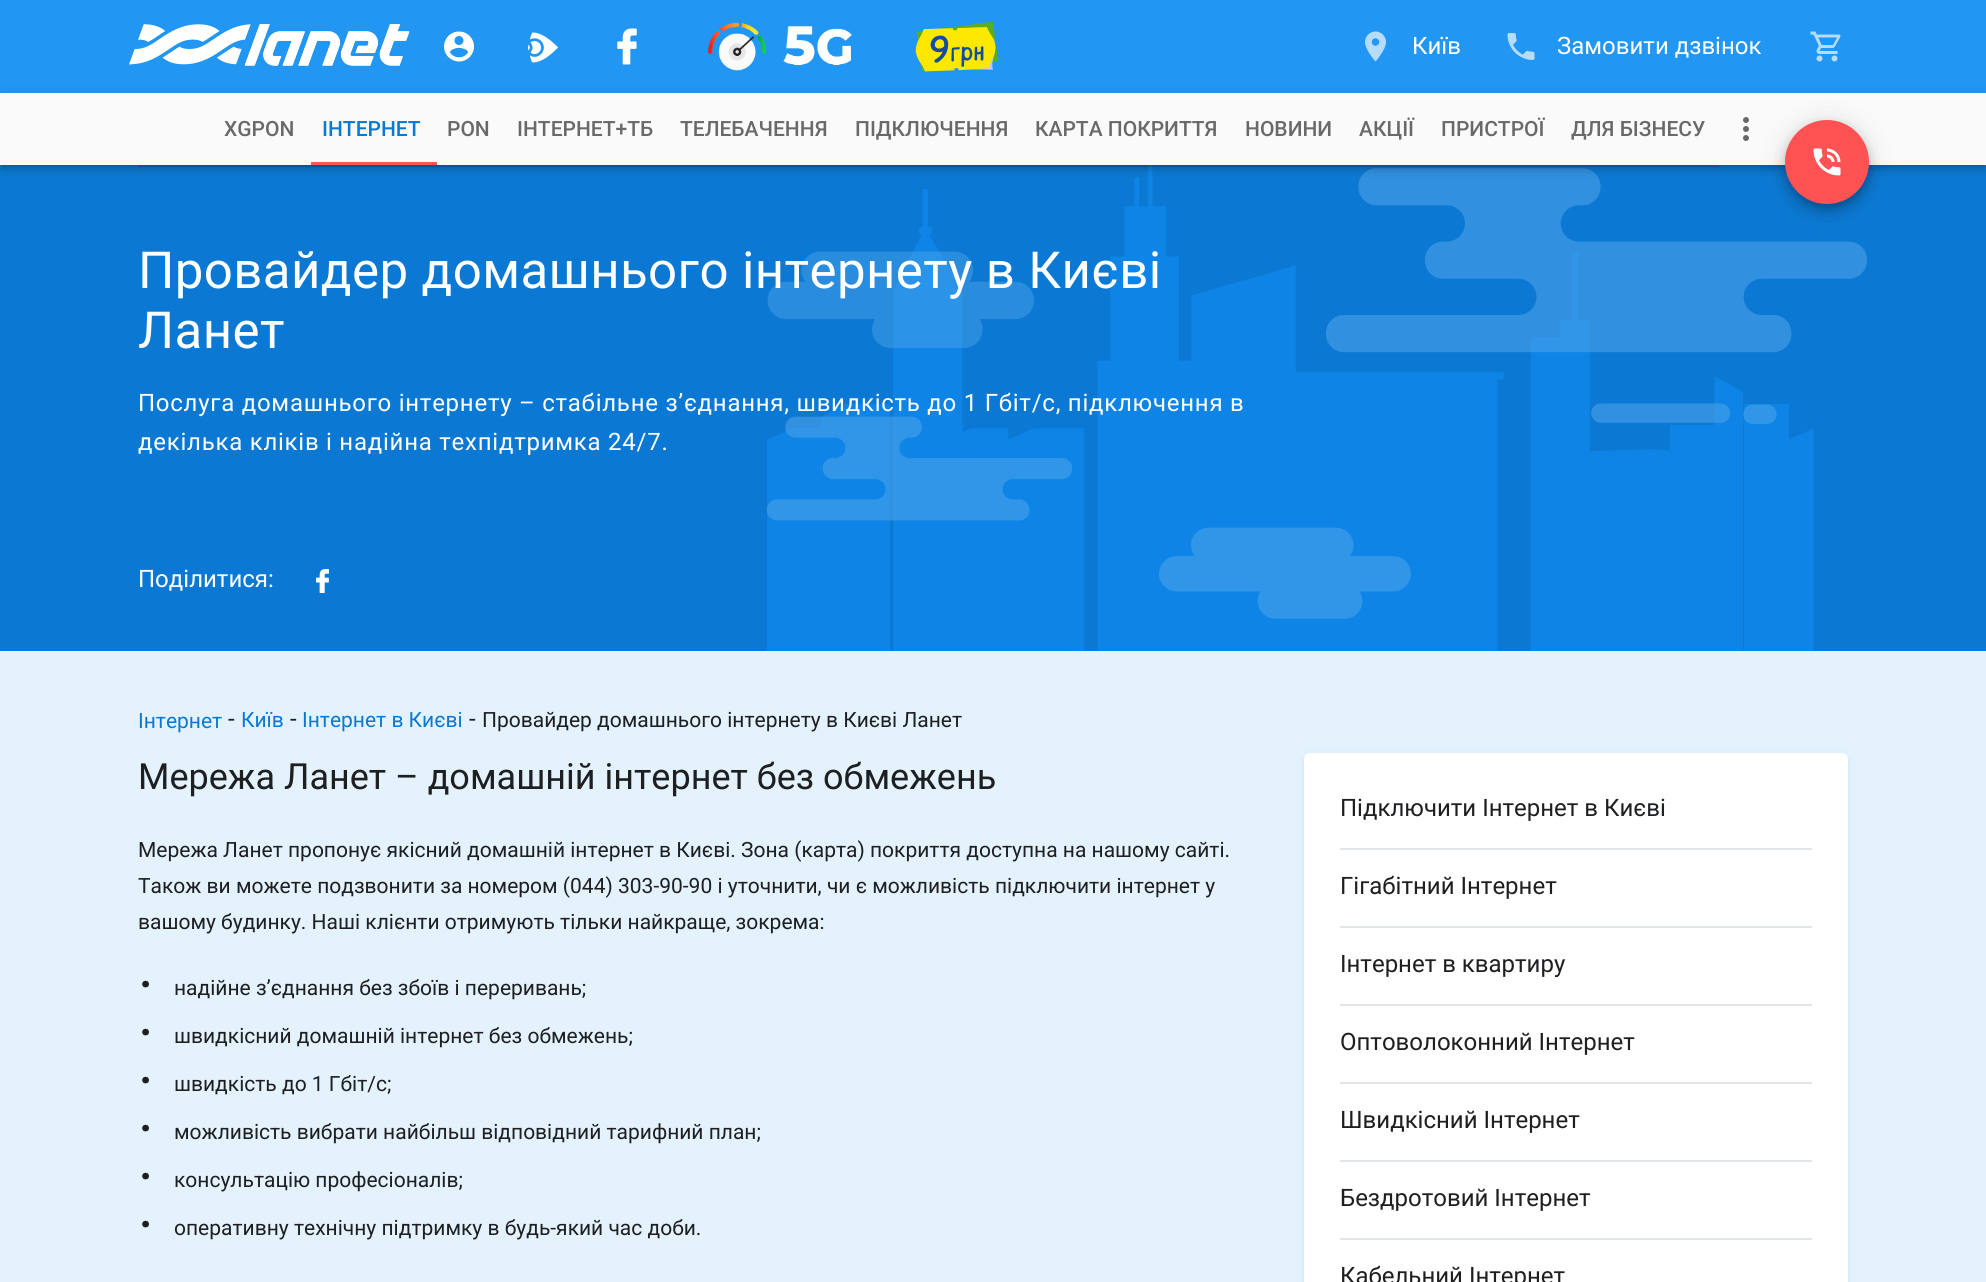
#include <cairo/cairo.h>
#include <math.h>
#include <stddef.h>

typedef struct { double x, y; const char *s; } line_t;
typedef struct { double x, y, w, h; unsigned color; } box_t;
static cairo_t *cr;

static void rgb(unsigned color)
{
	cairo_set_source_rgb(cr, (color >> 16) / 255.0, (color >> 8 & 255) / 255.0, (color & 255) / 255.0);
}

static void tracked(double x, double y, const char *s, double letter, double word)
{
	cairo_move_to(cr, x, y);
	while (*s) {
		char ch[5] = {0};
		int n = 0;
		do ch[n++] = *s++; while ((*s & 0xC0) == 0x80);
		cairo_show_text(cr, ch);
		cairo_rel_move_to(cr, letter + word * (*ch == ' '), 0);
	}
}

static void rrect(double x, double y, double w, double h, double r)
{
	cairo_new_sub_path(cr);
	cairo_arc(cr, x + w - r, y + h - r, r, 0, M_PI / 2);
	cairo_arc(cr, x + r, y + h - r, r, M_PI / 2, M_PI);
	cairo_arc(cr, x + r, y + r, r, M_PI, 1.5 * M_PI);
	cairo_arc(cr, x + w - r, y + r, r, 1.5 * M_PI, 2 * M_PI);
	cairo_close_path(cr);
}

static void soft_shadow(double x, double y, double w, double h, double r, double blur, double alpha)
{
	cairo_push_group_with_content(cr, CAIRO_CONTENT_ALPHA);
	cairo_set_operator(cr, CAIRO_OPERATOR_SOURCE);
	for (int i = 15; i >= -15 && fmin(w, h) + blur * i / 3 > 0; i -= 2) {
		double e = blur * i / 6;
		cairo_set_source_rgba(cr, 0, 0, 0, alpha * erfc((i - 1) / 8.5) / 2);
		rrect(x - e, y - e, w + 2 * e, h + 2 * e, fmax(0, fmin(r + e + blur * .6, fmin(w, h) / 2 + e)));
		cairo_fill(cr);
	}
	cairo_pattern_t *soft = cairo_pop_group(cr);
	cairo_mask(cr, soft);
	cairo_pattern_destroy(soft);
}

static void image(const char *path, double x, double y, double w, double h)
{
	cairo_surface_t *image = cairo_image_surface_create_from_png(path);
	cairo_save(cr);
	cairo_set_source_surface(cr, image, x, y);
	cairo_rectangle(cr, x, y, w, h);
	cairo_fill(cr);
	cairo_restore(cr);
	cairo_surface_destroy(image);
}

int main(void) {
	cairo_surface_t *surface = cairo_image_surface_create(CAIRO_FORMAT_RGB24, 1986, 1282);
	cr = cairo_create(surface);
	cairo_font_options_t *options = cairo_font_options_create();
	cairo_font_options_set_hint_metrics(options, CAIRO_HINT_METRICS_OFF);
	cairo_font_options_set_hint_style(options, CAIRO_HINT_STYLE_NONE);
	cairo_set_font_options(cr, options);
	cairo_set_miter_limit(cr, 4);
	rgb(0xe3f2fd);
	cairo_paint(cr);
	rgb(0x2196f3);
	cairo_rectangle(cr, 0, 0, 1986, 93);
	cairo_fill(cr);
	image("img/1.png", 129, 24, 122, 41);
	image("img/2.png", 245, 24, 164, 42);
	image("img/3.png", 245, 24, 165, 42);
	image("img/4.png", 444, 31, 30, 31);
	image("img/5.png", 528, 32, 30, 31);
	image("img/6.png", 617, 28, 20, 37);
	image("img/7.png", 708, 22, 144, 49);
	rgb(0x0b79d3);
	cairo_rectangle(cr, 0, 165, 1986, 486);
	cairo_fill(cr);
	image("img/14.png", 766, 165, 1101, 486);
	rgb(0x000000);
	soft_shadow(0, 95, 1986, 72, 0, 7.5, 0.08);
	image("img/8.png", 915, 21, 84, 51);
	image("img/9.png", 1365, 31, 21, 31);
	image("img/10.png", 1507, 33, 28, 27);
	image("img/11.png", 1810, 31, 31, 31);
	soft_shadow(0, 99, 1986, 72, 0, 4, 0.1);
	soft_shadow(2, 98, 1983, 69, 0, 3, 0.14);
	rgb(0xfafafa);
	cairo_rectangle(cr, 0, 93, 1986, 72);
	cairo_fill(cr);
	cairo_set_source_rgba(cr, 0, 0, 0, 0.12);
	cairo_rectangle(cr, 138, 165, 1581, 2);
	cairo_fill(cr);
	rgb(0xff5252);
	cairo_rectangle(cr, 311, 162, 126, 3);
	cairo_fill(cr);
	image("img/13.png", 1743, 117, 6, 24);
	rgb(0x000000);
	soft_shadow(1785, 122, 84, 84, 42, 13.5, 0.12);
	soft_shadow(1785, 129, 84, 84, 42, 7.5, 0.14);
	soft_shadow(1787, 126, 81, 81, 40.5, 4, 0.2);
	rgb(0xff5252);
	cairo_arc(cr, 1827, 162, 42, 0, 2 * M_PI);
	cairo_fill(cr);
	image("img/12.png", 1813, 148, 28, 28);
	image("img/15.png", 316, 569, 13, 24);
	rgb(0x9fc1d4);
	soft_shadow(1304, 755, 544, 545, 6, 4, 0.22);
	soft_shadow(1304, 756, 544, 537, 6, 1.5, 0.24);
	rgb(0xffffff);
	rrect(1304, 753, 544, 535, 6);
	cairo_fill(cr);
	{
		static const box_t items[] = {
			{1340, 848, 472, 2, 0xe2e6ea},
			{1340, 926, 472, 2, 0xe2e6ea},
			{1340, 1004, 472, 2, 0xe2e6ea},
			{1340, 1082, 472, 2, 0xe2e6ea},
			{1340, 1160, 472, 2, 0xe2e6ea},
			{1340, 1238, 472, 2, 0xe2e6ea},
		};
		for (size_t i = 0; i < sizeof items / sizeof *items; i++) {
			rgb(items[i].color);
			cairo_rectangle(cr, items[i].x, items[i].y, items[i].w, items[i].h);
			cairo_fill(cr);
		}
	}
	cairo_select_font_face(cr, "Roboto", CAIRO_FONT_SLANT_NORMAL, CAIRO_FONT_WEIGHT_NORMAL);
	cairo_set_font_size(cr, 24);
	rgb(0xffffff);
	cairo_move_to(cr, 1412, 54);
	cairo_show_text(cr, "Київ");
	cairo_move_to(cr, 1557, 54);
	cairo_show_text(cr, "Замовити дзвінок");
	cairo_select_font_face(cr, "Roboto Medium", CAIRO_FONT_SLANT_NORMAL, CAIRO_FONT_WEIGHT_NORMAL);
	cairo_set_font_size(cr, 21);
	rgb(0x696969);
	cairo_move_to(cr, 224, 136);
	cairo_show_text(cr, "XGPON");
	rgb(0x0b79d3);
	cairo_move_to(cr, 322, 136);
	cairo_show_text(cr, "IНТЕРНЕТ");
	rgb(0x696969);
	{
		static const line_t items[] = {
			{447, 136, "PON"},
			{517, 136, "ІНТЕРНЕТ+ТБ"},
			{680, 136, "ТЕЛЕБАЧЕННЯ"},
			{855, 136, "ПІДКЛЮЧЕННЯ"},
			{1035, 136, "КАРТА ПОКРИТТЯ"},
			{1245, 136, "НОВИНИ"},
			{1359, 136, "АКЦІЇ"},
			{1441, 136, "ПРИСТРОЇ"},
			{1571, 136, "ДЛЯ БІЗНЕСУ"},
		};
		for (size_t i = 0; i < sizeof items / sizeof *items; i++) {
			cairo_move_to(cr, items[i].x, items[i].y);
			cairo_show_text(cr, items[i].s);
		}
	}
	cairo_select_font_face(cr, "Roboto", CAIRO_FONT_SLANT_NORMAL, CAIRO_FONT_WEIGHT_NORMAL);
	cairo_set_font_size(cr, 51);
	rgb(0xffffff);
	tracked(138, 288, "Провайдер домашнього інтернету в Києві", 0.4, 0);
	tracked(138, 348, "Ланет", 0.4, 0);
	cairo_set_font_size(cr, 24);
	tracked(138, 411, "Послуга домашнього інтернету – стабільне з’єднання, швидкість до 1 Гбіт/с, підключення в", 0.75, 0);
	tracked(138, 450, "декілька кліків і надійна техпідтримка 24/7.", 0.75, 0);
	cairo_move_to(cr, 138, 587);
	cairo_show_text(cr, "Поділитися:");
	cairo_set_font_size(cr, 21);
	rgb(0x0b79d3);
	cairo_move_to(cr, 138, 728);
	cairo_show_text(cr, "Інтернет");
	cairo_set_font_size(cr, 24);
	rgb(0x1e1f21);
	cairo_move_to(cr, 228, 727);
	cairo_show_text(cr, "-");
	cairo_set_font_size(cr, 21);
	rgb(0x0b79d3);
	cairo_move_to(cr, 241, 727);
	cairo_show_text(cr, "Київ");
	cairo_set_font_size(cr, 24);
	rgb(0x1e1f21);
	cairo_move_to(cr, 290, 727);
	cairo_show_text(cr, "-");
	cairo_set_font_size(cr, 21);
	rgb(0x0b79d3);
	cairo_move_to(cr, 302, 727);
	cairo_show_text(cr, "Інтернет в Києві");
	cairo_set_font_size(cr, 24);
	rgb(0x1e1f21);
	cairo_move_to(cr, 469, 727);
	cairo_show_text(cr, "-");
	cairo_set_font_size(cr, 21);
	cairo_move_to(cr, 482, 727);
	cairo_show_text(cr, "Провайдер домашнього інтернету в Києві Ланет");
	cairo_set_font_size(cr, 36);
	cairo_move_to(cr, 138, 789);
	cairo_show_text(cr, "Мережа Ланет – домашній інтернет без обмежень");
	cairo_set_font_size(cr, 21);
	{
		static const line_t items[] = {
			{138, 857, "Мережа Ланет пропонує якісний домашній інтернет в Києві. Зона (карта) покриття доступна на нашому сайті."},
			{138, 893, "Також ви можете подзвонити за номером (044) 303-90-90 і уточнити, чи є можливість підключити інтернет у"},
			{138, 929, "вашому будинку. Наші клієнти отримують тільки найкраще, зокрема:"},
		};
		for (size_t i = 0; i < sizeof items / sizeof *items; i++) {
			cairo_move_to(cr, items[i].x, items[i].y);
			cairo_show_text(cr, items[i].s);
		}
	}
	cairo_set_font_size(cr, 60);
	cairo_move_to(cr, 138, 987);
	cairo_show_text(cr, ".");
	cairo_set_font_size(cr, 21);
	cairo_move_to(cr, 174, 995);
	cairo_show_text(cr, "надійне з’єднання без збоїв і переривань;");
	cairo_set_font_size(cr, 60);
	cairo_move_to(cr, 138, 1035);
	cairo_show_text(cr, ".");
	cairo_set_font_size(cr, 21);
	cairo_move_to(cr, 174, 1043);
	cairo_show_text(cr, "швидкісний домашній інтернет без обмежень;");
	cairo_set_font_size(cr, 60);
	cairo_move_to(cr, 138, 1083);
	cairo_show_text(cr, ".");
	cairo_set_font_size(cr, 21);
	cairo_move_to(cr, 174, 1091);
	cairo_show_text(cr, "швидкість до 1 Гбіт/с;");
	cairo_set_font_size(cr, 60);
	cairo_move_to(cr, 138, 1131);
	cairo_show_text(cr, ".");
	cairo_set_font_size(cr, 21);
	cairo_move_to(cr, 174, 1139);
	cairo_show_text(cr, "можливість вибрати найбільш відповідний тарифний план;");
	cairo_set_font_size(cr, 60);
	cairo_move_to(cr, 138, 1179);
	cairo_show_text(cr, ".");
	cairo_set_font_size(cr, 21);
	cairo_move_to(cr, 174, 1187);
	cairo_show_text(cr, "консультацію професіоналів;");
	cairo_set_font_size(cr, 60);
	cairo_move_to(cr, 138, 1227);
	cairo_show_text(cr, ".");
	cairo_set_font_size(cr, 21);
	cairo_move_to(cr, 174, 1235);
	cairo_show_text(cr, "оперативну технічну підтримку в будь-який час доби.");
	cairo_set_font_size(cr, 24);
	{
		static const line_t items[] = {
			{1340, 816, "Підключити Інтернет в Києві"},
			{1340, 894, "Гігабітний Інтернет"},
			{1340, 972, "Інтернет в квартиру"},
			{1340, 1050, "Оптоволоконний Інтернет"},
			{1340, 1128, "Швидкісний Інтернет"},
			{1340, 1206, "Бездротовий Інтернет"},
			{1340, 1284, "Кабельний Інтернет"},
		};
		for (size_t i = 0; i < sizeof items / sizeof *items; i++) {
			cairo_move_to(cr, items[i].x, items[i].y);
			cairo_show_text(cr, items[i].s);
		}
	}
	cairo_surface_write_to_png(surface, "page.png");
	cairo_font_options_destroy(options);
	cairo_destroy(cr);
	cairo_surface_destroy(surface);
	return 0;
}
